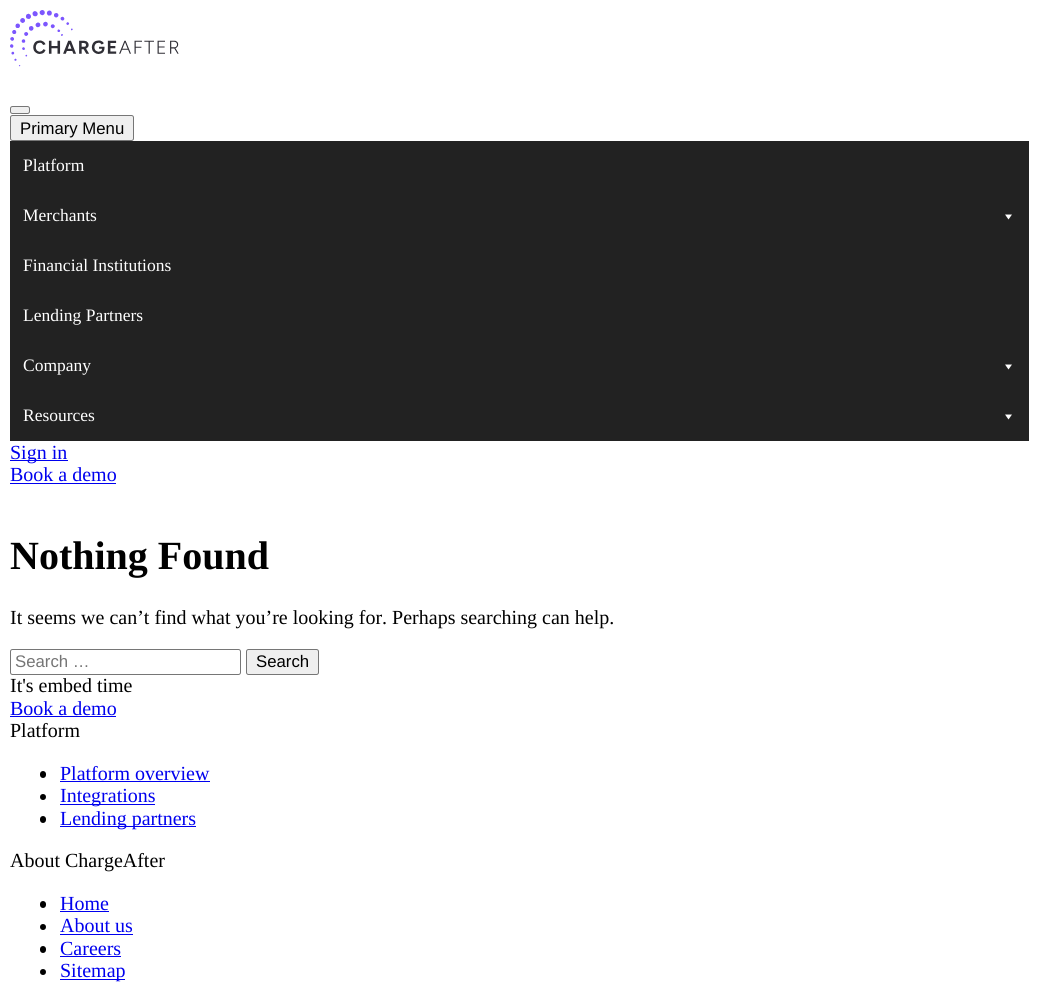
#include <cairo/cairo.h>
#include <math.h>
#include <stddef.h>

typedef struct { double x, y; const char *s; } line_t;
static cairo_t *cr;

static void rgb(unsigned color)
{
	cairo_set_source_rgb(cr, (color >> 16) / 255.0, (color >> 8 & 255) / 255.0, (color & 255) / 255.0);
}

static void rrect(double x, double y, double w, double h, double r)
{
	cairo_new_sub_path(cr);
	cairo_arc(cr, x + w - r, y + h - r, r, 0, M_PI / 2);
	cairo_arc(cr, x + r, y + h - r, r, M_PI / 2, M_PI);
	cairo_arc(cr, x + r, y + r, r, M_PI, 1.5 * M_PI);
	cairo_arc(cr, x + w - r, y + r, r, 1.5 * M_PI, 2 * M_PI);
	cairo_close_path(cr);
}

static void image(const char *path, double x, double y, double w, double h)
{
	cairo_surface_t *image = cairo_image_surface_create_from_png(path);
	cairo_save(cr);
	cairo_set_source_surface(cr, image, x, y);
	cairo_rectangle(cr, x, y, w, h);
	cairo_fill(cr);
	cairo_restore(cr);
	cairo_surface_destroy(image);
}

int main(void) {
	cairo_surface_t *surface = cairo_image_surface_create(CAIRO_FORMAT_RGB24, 1038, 1005);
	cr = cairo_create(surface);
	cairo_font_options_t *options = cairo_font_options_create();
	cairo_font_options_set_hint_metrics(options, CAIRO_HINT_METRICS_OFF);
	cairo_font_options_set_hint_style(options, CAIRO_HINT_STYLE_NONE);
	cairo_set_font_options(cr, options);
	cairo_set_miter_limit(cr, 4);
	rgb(0xffffff);
	cairo_paint(cr);
	image("img/1.png", 10, 10, 169, 57);
	rgb(0xefefef);
	rrect(10.5, 106.5, 19, 7, 2);
	cairo_fill_preserve(cr);
	rgb(0x767676);
	cairo_set_line_width(cr, 1);
	cairo_stroke(cr);
	rgb(0xefefef);
	rrect(10.5, 115.5, 123, 25, 2);
	cairo_fill_preserve(cr);
	rgb(0x767676);
	cairo_stroke(cr);
	rgb(0x222222);
	cairo_rectangle(cr, 10, 141, 1019, 300);
	cairo_fill(cr);
	rgb(0xffffff);
	cairo_new_path(cr);
	cairo_move_to(cr, 1012, 214.5);
	cairo_line_to(cr, 1008.5, 219.5);
	cairo_line_to(cr, 1005, 214.5);
	cairo_close_path(cr);
	cairo_fill(cr);
	cairo_new_path(cr);
	cairo_move_to(cr, 1012, 364.5);
	cairo_line_to(cr, 1008.5, 369.5);
	cairo_line_to(cr, 1005, 364.5);
	cairo_close_path(cr);
	cairo_fill(cr);
	cairo_new_path(cr);
	cairo_move_to(cr, 1012, 414.5);
	cairo_line_to(cr, 1008.5, 419.5);
	cairo_line_to(cr, 1005, 414.5);
	cairo_close_path(cr);
	cairo_fill(cr);
	rgb(0x0000ee);
	cairo_rectangle(cr, 10, 460, 58, 1);
	cairo_fill(cr);
	cairo_rectangle(cr, 10, 483, 106, 1);
	cairo_fill(cr);
	rrect(10.5, 649.5, 230, 25, 2);
	rgb(0x767676);
	cairo_stroke(cr);
	rgb(0xefefef);
	rrect(246.5, 649.5, 72, 25, 2);
	cairo_fill_preserve(cr);
	rgb(0x767676);
	cairo_stroke(cr);
	rgb(0x0000ee);
	cairo_rectangle(cr, 10, 716, 106, 1);
	cairo_fill(cr);
	rgb(0x000000);
	rrect(40, 771, 6, 7, 3);
	cairo_fill(cr);
	rgb(0x0000ee);
	cairo_rectangle(cr, 60, 781, 150, 1);
	cairo_fill(cr);
	rgb(0x000000);
	cairo_arc(cr, 43, 797, 3, 0, 2 * M_PI);
	cairo_fill(cr);
	rgb(0x0000ee);
	cairo_rectangle(cr, 60, 804, 95, 1);
	cairo_fill(cr);
	rgb(0x000000);
	rrect(40, 816, 6, 7, 3);
	cairo_fill(cr);
	rgb(0x0000ee);
	cairo_rectangle(cr, 60, 826, 136, 1);
	cairo_fill(cr);
	rgb(0x000000);
	rrect(40, 901, 6, 7, 3);
	cairo_fill(cr);
	rgb(0x0000ee);
	cairo_rectangle(cr, 60, 911, 49, 1);
	cairo_fill(cr);
	rgb(0x000000);
	cairo_arc(cr, 43, 927, 3, 0, 2 * M_PI);
	cairo_fill(cr);
	rgb(0x0000ee);
	cairo_rectangle(cr, 60, 934, 73, 1);
	cairo_fill(cr);
	rgb(0x000000);
	rrect(40, 946, 6, 7, 3);
	cairo_fill(cr);
	rgb(0x0000ee);
	cairo_rectangle(cr, 60, 956, 61, 1);
	cairo_fill(cr);
	rgb(0x000000);
	cairo_arc(cr, 43, 972, 3, 0, 2 * M_PI);
	cairo_fill(cr);
	rgb(0x0000ee);
	cairo_rectangle(cr, 60, 979, 65, 1);
	cairo_fill(cr);
	cairo_select_font_face(cr, "Liberation Sans", CAIRO_FONT_SLANT_NORMAL, CAIRO_FONT_WEIGHT_NORMAL);
	cairo_set_font_size(cr, 16.75);
	rgb(0x000000);
	cairo_move_to(cr, 20, 134);
	cairo_show_text(cr, "Primary Menu");
	cairo_select_font_face(cr, "Liberation Serif", CAIRO_FONT_SLANT_NORMAL, CAIRO_FONT_WEIGHT_NORMAL);
	cairo_set_font_size(cr, 17.5);
	rgb(0xffffff);
	{
		static const line_t items[] = {
			{23, 171, "Platform"},
			{23, 221, "Merchants"},
			{23, 271, "Financial Institutions"},
			{23, 321, "Lending Partners"},
			{23, 371, "Company"},
			{23, 421, "Resources"},
		};
		for (size_t i = 0; i < sizeof items / sizeof *items; i++) {
			cairo_move_to(cr, items[i].x, items[i].y);
			cairo_show_text(cr, items[i].s);
		}
	}
	cairo_set_font_size(cr, 20);
	rgb(0x0000ee);
	cairo_move_to(cr, 10, 459);
	cairo_show_text(cr, "Sign in");
	cairo_move_to(cr, 10, 481);
	cairo_show_text(cr, "Book a demo");
	cairo_select_font_face(cr, "Liberation Serif", CAIRO_FONT_SLANT_NORMAL, CAIRO_FONT_WEIGHT_BOLD);
	cairo_set_font_size(cr, 40);
	rgb(0x000000);
	cairo_move_to(cr, 10, 569);
	cairo_show_text(cr, "Nothing Found");
	cairo_select_font_face(cr, "Liberation Serif", CAIRO_FONT_SLANT_NORMAL, CAIRO_FONT_WEIGHT_NORMAL);
	cairo_set_font_size(cr, 20);
	cairo_move_to(cr, 10, 624);
	cairo_show_text(cr, "It seems we can’t find what you’re looking for. Perhaps searching can help.");
	cairo_select_font_face(cr, "Liberation Sans", CAIRO_FONT_SLANT_NORMAL, CAIRO_FONT_WEIGHT_NORMAL);
	cairo_set_font_size(cr, 16.75);
	rgb(0x757575);
	cairo_move_to(cr, 15, 667);
	cairo_show_text(cr, "Search …");
	rgb(0x000000);
	cairo_move_to(cr, 256, 667);
	cairo_show_text(cr, "Search");
	cairo_select_font_face(cr, "Liberation Serif", CAIRO_FONT_SLANT_NORMAL, CAIRO_FONT_WEIGHT_NORMAL);
	cairo_set_font_size(cr, 20);
	cairo_move_to(cr, 10, 692);
	cairo_show_text(cr, "It's embed time");
	rgb(0x0000ee);
	cairo_move_to(cr, 10, 715);
	cairo_show_text(cr, "Book a demo");
	rgb(0x000000);
	cairo_move_to(cr, 10, 737);
	cairo_show_text(cr, "Platform");
	rgb(0x0000ee);
	{
		static const line_t items[] = {
			{60, 780, "Platform overview"},
			{60, 802, "Integrations"},
			{60, 825, "Lending partners"},
		};
		for (size_t i = 0; i < sizeof items / sizeof *items; i++) {
			cairo_move_to(cr, items[i].x, items[i].y);
			cairo_show_text(cr, items[i].s);
		}
	}
	rgb(0x000000);
	cairo_move_to(cr, 10, 867);
	cairo_show_text(cr, "About ChargeAfter");
	rgb(0x0000ee);
	{
		static const line_t items[] = {
			{60, 910, "Home"},
			{60, 932, "About us"},
			{60, 955, "Careers"},
			{60, 977, "Sitemap"},
		};
		for (size_t i = 0; i < sizeof items / sizeof *items; i++) {
			cairo_move_to(cr, items[i].x, items[i].y);
			cairo_show_text(cr, items[i].s);
		}
	}
	cairo_surface_write_to_png(surface, "page.png");
	cairo_font_options_destroy(options);
	cairo_destroy(cr);
	cairo_surface_destroy(surface);
	return 0;
}
